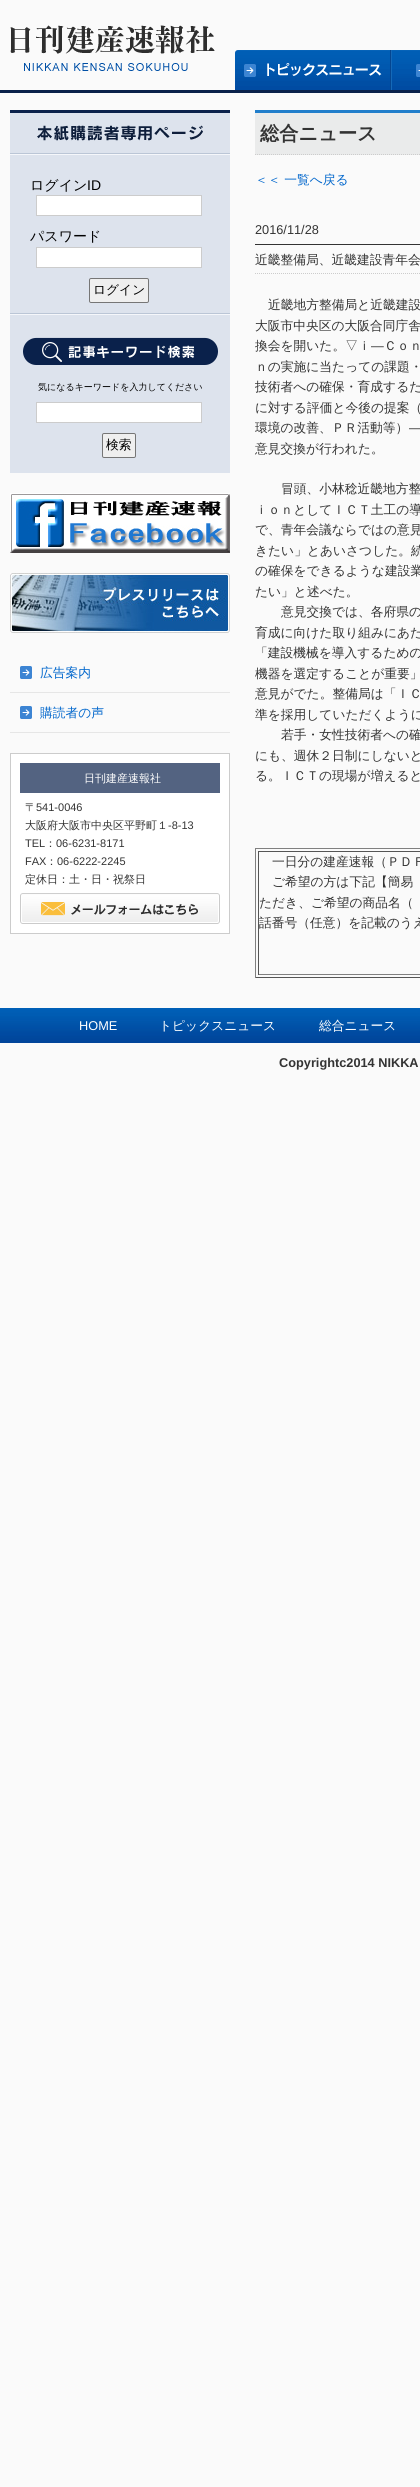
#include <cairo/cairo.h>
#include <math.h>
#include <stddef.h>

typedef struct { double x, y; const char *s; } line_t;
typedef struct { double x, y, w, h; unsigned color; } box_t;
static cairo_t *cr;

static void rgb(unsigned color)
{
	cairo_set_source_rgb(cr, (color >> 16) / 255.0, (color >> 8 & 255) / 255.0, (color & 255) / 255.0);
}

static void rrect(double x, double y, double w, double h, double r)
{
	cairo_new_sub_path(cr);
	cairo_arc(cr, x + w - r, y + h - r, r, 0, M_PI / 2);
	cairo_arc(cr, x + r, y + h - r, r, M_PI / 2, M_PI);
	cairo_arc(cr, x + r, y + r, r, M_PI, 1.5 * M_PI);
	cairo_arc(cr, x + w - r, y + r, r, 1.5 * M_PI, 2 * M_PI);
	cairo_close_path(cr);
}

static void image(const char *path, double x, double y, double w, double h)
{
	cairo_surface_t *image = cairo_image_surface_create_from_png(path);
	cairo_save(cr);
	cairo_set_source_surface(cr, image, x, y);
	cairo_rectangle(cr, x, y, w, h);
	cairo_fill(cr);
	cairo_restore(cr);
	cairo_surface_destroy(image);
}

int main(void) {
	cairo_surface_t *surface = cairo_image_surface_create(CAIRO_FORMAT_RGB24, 420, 2487);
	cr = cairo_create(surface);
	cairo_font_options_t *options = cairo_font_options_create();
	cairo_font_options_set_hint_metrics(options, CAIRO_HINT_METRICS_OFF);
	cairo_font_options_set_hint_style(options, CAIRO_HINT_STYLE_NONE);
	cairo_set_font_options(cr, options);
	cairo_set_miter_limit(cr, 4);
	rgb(0xfafafa);
	cairo_paint(cr);
	rgb(0x0a214a);
	cairo_rectangle(cr, 0, 90, 420, 3);
	cairo_fill(cr);
	image("img/1.png", 10, 25, 205, 46);
	image("img/2.png", 235, 50, 155, 40);
	image("img/3.png", 390, 50, 30, 40);
	rgb(0xdde3ed);
	cairo_rectangle(cr, 10, 113, 220, 360);
	cairo_fill(cr);
	rgb(0x0a214b);
	cairo_rectangle(cr, 10, 110, 220, 3);
	cairo_fill(cr);
	image("img/4.png", 37, 125, 166, 16);
	image("img/5.png", 10, 153, 220, 2);
	rgb(0xffffff);
	cairo_rectangle(cr, 36.5, 195.5, 165, 20);
	cairo_fill_preserve(cr);
	rgb(0xcccccc);
	cairo_set_line_width(cr, 1);
	cairo_stroke(cr);
	rgb(0xffffff);
	cairo_rectangle(cr, 36.5, 247.5, 165, 20);
	cairo_fill_preserve(cr);
	rgb(0xcccccc);
	cairo_stroke(cr);
	rgb(0xefefef);
	rrect(89.5, 278.5, 59, 24, 1.5);
	cairo_fill_preserve(cr);
	rgb(0x767676);
	cairo_stroke(cr);
	image("img/5.png", 10, 313, 220, 2);
	image("img/6.png", 23, 337, 195, 28);
	rgb(0xffffff);
	cairo_rectangle(cr, 36.5, 402.5, 165, 20);
	cairo_fill_preserve(cr);
	rgb(0xcccccc);
	cairo_stroke(cr);
	rgb(0xefefef);
	rrect(102.5, 433.5, 33, 24, 1.5);
	cairo_fill_preserve(cr);
	rgb(0x767676);
	cairo_stroke(cr);
	image("img/7.png", 10, 493, 220, 60);
	image("img/8.png", 10, 573, 220, 60);
	image("img/9.png", 10, 666, 220, 27);
	image("img/9.png", 10, 706, 220, 27);
	rgb(0xffffff);
	cairo_rectangle(cr, 10.5, 753.5, 219, 180);
	cairo_fill_preserve(cr);
	rgb(0xcccccc);
	cairo_stroke(cr);
	rgb(0x536381);
	cairo_rectangle(cr, 20, 763, 200, 30);
	cairo_fill(cr);
	image("img/10.png", 20, 893, 200, 31);
	rgb(0xeaebeb);
	cairo_rectangle(cr, 255, 113, 165, 42);
	cairo_fill(cr);
	rgb(0x217ecb);
	cairo_rectangle(cr, 255, 110, 165, 3);
	cairo_fill(cr);
	cairo_new_path(cr);
	cairo_move_to(cr, 255, 154.5);
	cairo_line_to(cr, 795, 154.5);
	rgb(0xcccccc);
	cairo_set_dash(cr, (double[]){1, 1}, 2, 0);
	cairo_stroke(cr);
	rgb(0x333333);
	cairo_rectangle(cr, 255, 244, 165, 1);
	cairo_fill(cr);
	cairo_new_path(cr);
	cairo_move_to(cr, 255, 273.5);
	cairo_line_to(cr, 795, 273.5);
	rgb(0xcccccc);
	cairo_stroke(cr);
	{
		static const box_t items[] = {
			{255, 848, 165, 1, 0x808080},
			{255, 977, 165, 1, 0x555555},
			{255, 848, 1, 130, 0x808080},
			{258, 851, 162, 1, 0x555555},
			{258, 974, 162, 1, 0x808080},
			{258, 851, 1, 124, 0x555555},
		};
		for (size_t i = 0; i < sizeof items / sizeof *items; i++) {
			rgb(items[i].color);
			cairo_rectangle(cr, items[i].x, items[i].y, items[i].w, items[i].h);
			cairo_fill(cr);
		}
	}
	image("img/11.png", 0, 1008, 420, 35);
	cairo_select_font_face(cr, "WenQuanYi Zen Hei Medium", CAIRO_FONT_SLANT_NORMAL, CAIRO_FONT_WEIGHT_NORMAL);
	cairo_set_font_size(cr, 14);
	rgb(0x000000);
	cairo_move_to(cr, 30, 190);
	cairo_show_text(cr, "ログイン");
	cairo_select_font_face(cr, "Liberation Sans", CAIRO_FONT_SLANT_NORMAL, CAIRO_FONT_WEIGHT_NORMAL);
	cairo_move_to(cr, 87, 190);
	cairo_show_text(cr, "ID");
	cairo_select_font_face(cr, "WenQuanYi Zen Hei Medium", CAIRO_FONT_SLANT_NORMAL, CAIRO_FONT_WEIGHT_NORMAL);
	cairo_move_to(cr, 30, 241);
	cairo_show_text(cr, "パスワード");
	cairo_set_font_size(cr, 12.75);
	cairo_move_to(cr, 93, 294);
	cairo_show_text(cr, "ログイン");
	cairo_set_font_size(cr, 9);
	cairo_move_to(cr, 38, 390);
	cairo_show_text(cr, "気になるキーワードを入力してください");
	cairo_set_font_size(cr, 12.75);
	cairo_move_to(cr, 106, 449);
	cairo_show_text(cr, "検索");
	rgb(0x0066cc);
	cairo_move_to(cr, 40, 677);
	cairo_show_text(cr, "広告案内");
	cairo_move_to(cr, 40, 717);
	cairo_show_text(cr, "購読者の声");
	cairo_set_font_size(cr, 11);
	rgb(0xffffff);
	cairo_move_to(cr, 84, 782);
	cairo_show_text(cr, "日刊建産速報社");
	rgb(0x333333);
	cairo_move_to(cr, 25, 811);
	cairo_show_text(cr, "〒");
	cairo_select_font_face(cr, "Liberation Sans", CAIRO_FONT_SLANT_NORMAL, CAIRO_FONT_WEIGHT_NORMAL);
	cairo_move_to(cr, 36, 811);
	cairo_show_text(cr, "541-0046");
	cairo_select_font_face(cr, "WenQuanYi Zen Hei Medium", CAIRO_FONT_SLANT_NORMAL, CAIRO_FONT_WEIGHT_NORMAL);
	cairo_move_to(cr, 25, 829);
	cairo_show_text(cr, "大阪府大阪市中央区平野町１");
	cairo_select_font_face(cr, "Liberation Sans", CAIRO_FONT_SLANT_NORMAL, CAIRO_FONT_WEIGHT_NORMAL);
	cairo_move_to(cr, 168, 829);
	cairo_show_text(cr, "-8-13");
	cairo_move_to(cr, 25, 847);
	cairo_show_text(cr, "TEL");
	cairo_select_font_face(cr, "WenQuanYi Zen Hei Medium", CAIRO_FONT_SLANT_NORMAL, CAIRO_FONT_WEIGHT_NORMAL);
	cairo_move_to(cr, 45, 847);
	cairo_show_text(cr, "：");
	cairo_select_font_face(cr, "Liberation Sans", CAIRO_FONT_SLANT_NORMAL, CAIRO_FONT_WEIGHT_NORMAL);
	cairo_move_to(cr, 56, 847);
	cairo_show_text(cr, "06-6231-8171");
	cairo_move_to(cr, 25, 865);
	cairo_show_text(cr, "FAX");
	cairo_select_font_face(cr, "WenQuanYi Zen Hei Medium", CAIRO_FONT_SLANT_NORMAL, CAIRO_FONT_WEIGHT_NORMAL);
	cairo_move_to(cr, 46, 865);
	cairo_show_text(cr, "：");
	cairo_select_font_face(cr, "Liberation Sans", CAIRO_FONT_SLANT_NORMAL, CAIRO_FONT_WEIGHT_NORMAL);
	cairo_move_to(cr, 57, 865);
	cairo_show_text(cr, "06-6222-2245");
	cairo_select_font_face(cr, "WenQuanYi Zen Hei Medium", CAIRO_FONT_SLANT_NORMAL, CAIRO_FONT_WEIGHT_NORMAL);
	cairo_move_to(cr, 25, 883);
	cairo_show_text(cr, "定休日：土・日・祝祭日");
	cairo_select_font_face(cr, "WenQuanYi Zen Hei", CAIRO_FONT_SLANT_NORMAL, CAIRO_FONT_WEIGHT_BOLD);
	cairo_set_font_size(cr, 19.25);
	cairo_move_to(cr, 260, 140);
	cairo_show_text(cr, "総合ニュース");
	cairo_select_font_face(cr, "WenQuanYi Zen Hei Medium", CAIRO_FONT_SLANT_NORMAL, CAIRO_FONT_WEIGHT_NORMAL);
	cairo_set_font_size(cr, 12.75);
	rgb(0x0066cc);
	cairo_move_to(cr, 255, 184);
	cairo_show_text(cr, "＜＜ 一覧へ戻る");
	cairo_select_font_face(cr, "Liberation Sans", CAIRO_FONT_SLANT_NORMAL, CAIRO_FONT_WEIGHT_NORMAL);
	rgb(0x333333);
	cairo_move_to(cr, 255, 234);
	cairo_show_text(cr, "2016/11/28");
	cairo_select_font_face(cr, "WenQuanYi Zen Hei Medium", CAIRO_FONT_SLANT_NORMAL, CAIRO_FONT_WEIGHT_NORMAL);
	{
		static const line_t items[] = {
			{255, 264, "近畿整備局、近畿建設青年会"},
			{268, 309, "近畿地方整備局と近畿建設"},
			{255, 330, "大阪市中央区の大阪合同庁舎"},
			{255, 350, "換会を開いた。▽ｉ"},
		};
		for (size_t i = 0; i < sizeof items / sizeof *items; i++) {
			cairo_move_to(cr, items[i].x, items[i].y);
			cairo_show_text(cr, items[i].s);
		}
	}
	cairo_select_font_face(cr, "Liberation Sans", CAIRO_FONT_SLANT_NORMAL, CAIRO_FONT_WEIGHT_NORMAL);
	cairo_move_to(cr, 371, 350);
	cairo_show_text(cr, "―");
	cairo_select_font_face(cr, "WenQuanYi Zen Hei Medium", CAIRO_FONT_SLANT_NORMAL, CAIRO_FONT_WEIGHT_NORMAL);
	{
		static const line_t items[] = {
			{384, 350, "Ｃｏｎ"},
			{255, 371, "ｎの実施に当たっての課題・"},
			{255, 391, "技術者への確保・育成するた"},
			{255, 412, "に対する評価と今後の提案（"},
			{255, 432, "環境の改善、ＰＲ活動等）"},
		};
		for (size_t i = 0; i < sizeof items / sizeof *items; i++) {
			cairo_move_to(cr, items[i].x, items[i].y);
			cairo_show_text(cr, items[i].s);
		}
	}
	cairo_select_font_face(cr, "Liberation Sans", CAIRO_FONT_SLANT_NORMAL, CAIRO_FONT_WEIGHT_NORMAL);
	cairo_move_to(cr, 409, 432);
	cairo_show_text(cr, "―");
	cairo_select_font_face(cr, "WenQuanYi Zen Hei Medium", CAIRO_FONT_SLANT_NORMAL, CAIRO_FONT_WEIGHT_NORMAL);
	{
		static const line_t items[] = {
			{255, 453, "意見交換が行われた。"},
			{281, 493, "冒頭、小林稔近畿地方整"},
			{255, 514, "ｉｏｎとしてＩＣＴ土工の導"},
			{255, 534, "で、青年会議ならではの意見"},
			{255, 555, "きたい」とあいさつした。続"},
			{255, 575, "の確保をできるような建設業"},
			{255, 596, "たい」と述べた。"},
			{281, 616, "意見交換では、各府県の"},
			{255, 637, "育成に向けた取り組みにあた"},
			{255, 657, "「建設機械を導入するための"},
			{255, 678, "機器を選定することが重要」"},
			{255, 698, "意見がでた。整備局は「ＩＣ"},
			{255, 719, "準を採用していただくように"},
			{281, 739, "若手・女性技術者への確"},
			{255, 760, "にも、週休２日制にしないと"},
			{255, 780, "る。ＩＣＴの現場が増えると"},
			{272, 866, "一日分の建産速報（ＰＤＦ"},
			{272, 886, "ご希望の方は下記【簡易"},
			{259, 907, "ただき、ご希望の商品名（"},
			{259, 927, "話番号（任意）を記載のうえ"},
		};
		for (size_t i = 0; i < sizeof items / sizeof *items; i++) {
			cairo_move_to(cr, items[i].x, items[i].y);
			cairo_show_text(cr, items[i].s);
		}
	}
	cairo_select_font_face(cr, "Liberation Sans", CAIRO_FONT_SLANT_NORMAL, CAIRO_FONT_WEIGHT_NORMAL);
	rgb(0xffffff);
	cairo_move_to(cr, 79, 1030);
	cairo_show_text(cr, "HOME");
	cairo_select_font_face(cr, "WenQuanYi Zen Hei Medium", CAIRO_FONT_SLANT_NORMAL, CAIRO_FONT_WEIGHT_NORMAL);
	cairo_move_to(cr, 159, 1030);
	cairo_show_text(cr, "トピックスニュース");
	cairo_move_to(cr, 319, 1030);
	cairo_show_text(cr, "総合ニュース");
	cairo_select_font_face(cr, "Liberation Sans", CAIRO_FONT_SLANT_NORMAL, CAIRO_FONT_WEIGHT_BOLD);
	rgb(0x333333);
	cairo_move_to(cr, 279, 1067);
	cairo_show_text(cr, "Copyrightc2014 NIKKA");
	cairo_surface_write_to_png(surface, "page.png");
	cairo_font_options_destroy(options);
	cairo_destroy(cr);
	cairo_surface_destroy(surface);
	return 0;
}
